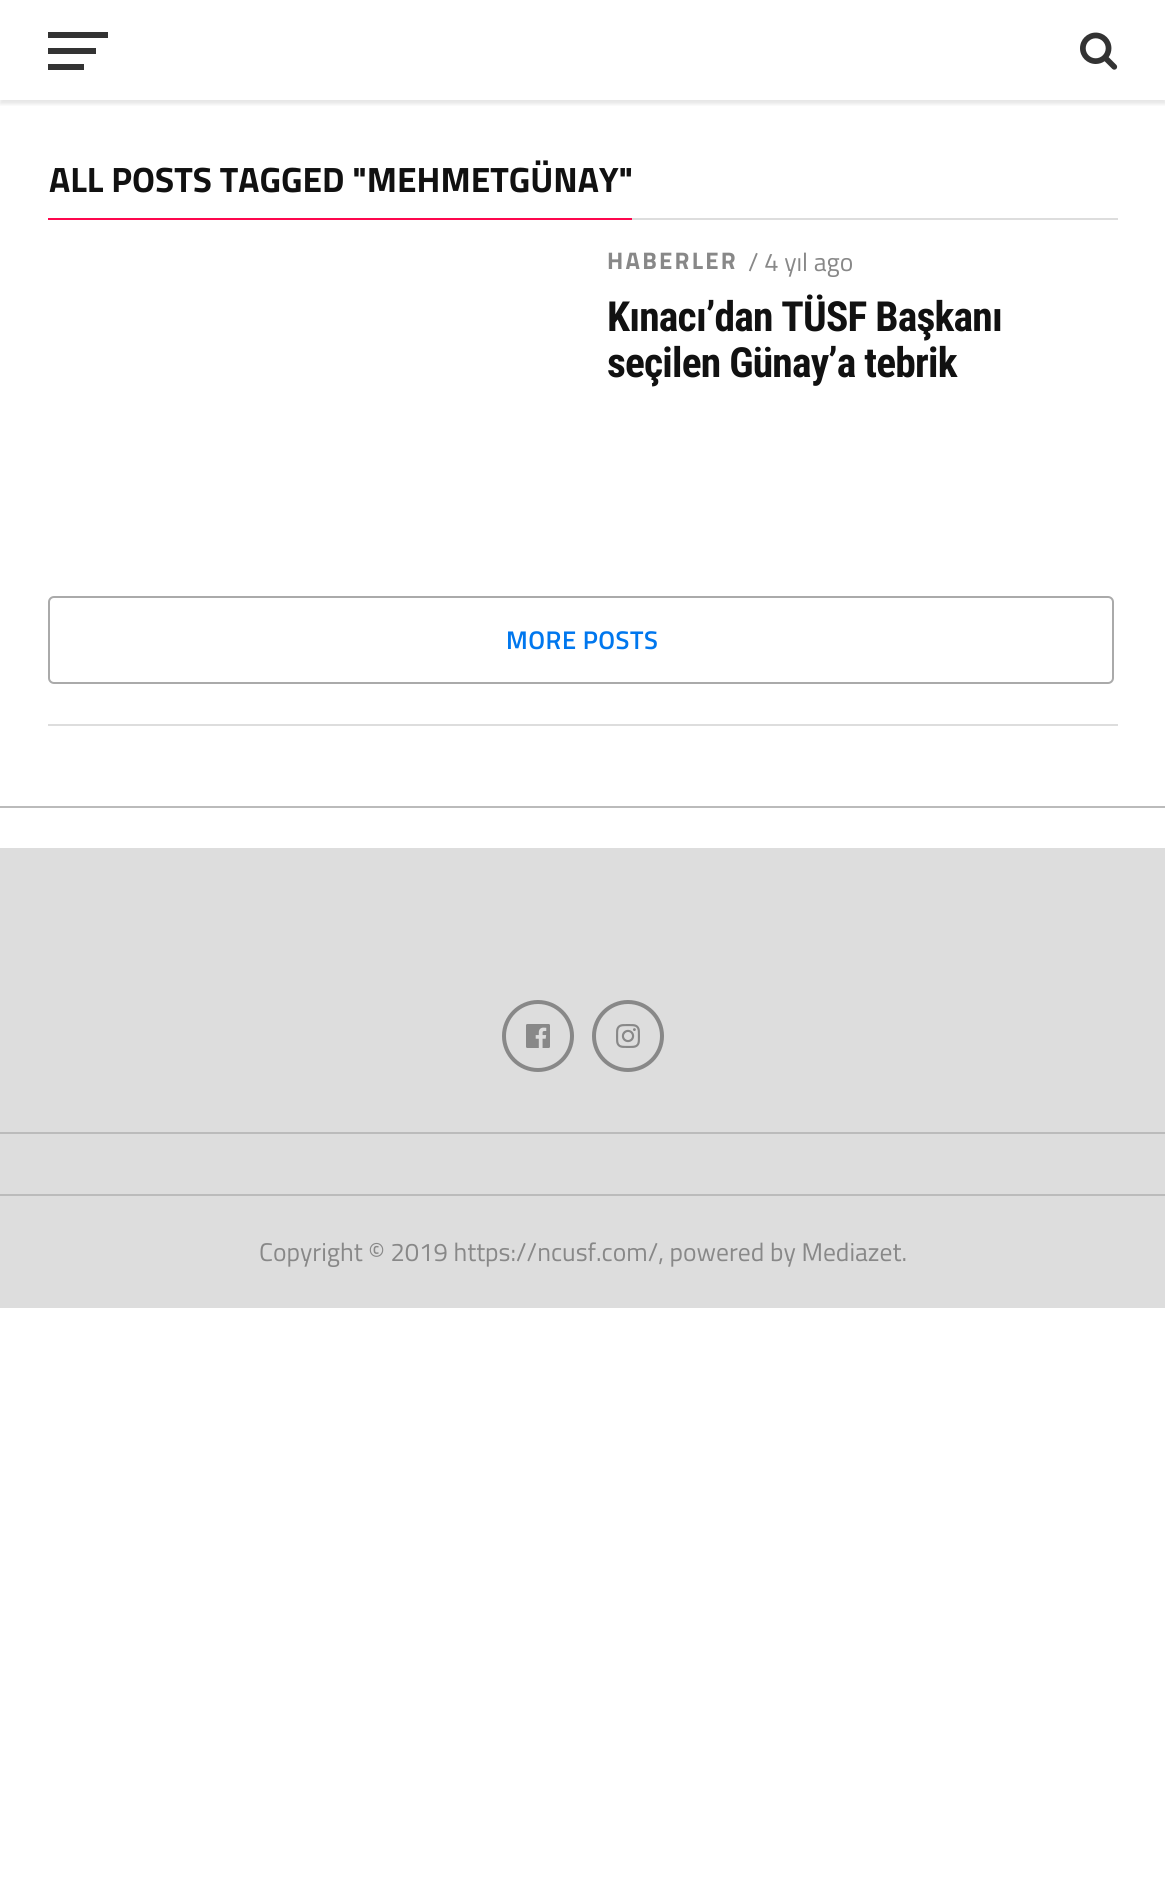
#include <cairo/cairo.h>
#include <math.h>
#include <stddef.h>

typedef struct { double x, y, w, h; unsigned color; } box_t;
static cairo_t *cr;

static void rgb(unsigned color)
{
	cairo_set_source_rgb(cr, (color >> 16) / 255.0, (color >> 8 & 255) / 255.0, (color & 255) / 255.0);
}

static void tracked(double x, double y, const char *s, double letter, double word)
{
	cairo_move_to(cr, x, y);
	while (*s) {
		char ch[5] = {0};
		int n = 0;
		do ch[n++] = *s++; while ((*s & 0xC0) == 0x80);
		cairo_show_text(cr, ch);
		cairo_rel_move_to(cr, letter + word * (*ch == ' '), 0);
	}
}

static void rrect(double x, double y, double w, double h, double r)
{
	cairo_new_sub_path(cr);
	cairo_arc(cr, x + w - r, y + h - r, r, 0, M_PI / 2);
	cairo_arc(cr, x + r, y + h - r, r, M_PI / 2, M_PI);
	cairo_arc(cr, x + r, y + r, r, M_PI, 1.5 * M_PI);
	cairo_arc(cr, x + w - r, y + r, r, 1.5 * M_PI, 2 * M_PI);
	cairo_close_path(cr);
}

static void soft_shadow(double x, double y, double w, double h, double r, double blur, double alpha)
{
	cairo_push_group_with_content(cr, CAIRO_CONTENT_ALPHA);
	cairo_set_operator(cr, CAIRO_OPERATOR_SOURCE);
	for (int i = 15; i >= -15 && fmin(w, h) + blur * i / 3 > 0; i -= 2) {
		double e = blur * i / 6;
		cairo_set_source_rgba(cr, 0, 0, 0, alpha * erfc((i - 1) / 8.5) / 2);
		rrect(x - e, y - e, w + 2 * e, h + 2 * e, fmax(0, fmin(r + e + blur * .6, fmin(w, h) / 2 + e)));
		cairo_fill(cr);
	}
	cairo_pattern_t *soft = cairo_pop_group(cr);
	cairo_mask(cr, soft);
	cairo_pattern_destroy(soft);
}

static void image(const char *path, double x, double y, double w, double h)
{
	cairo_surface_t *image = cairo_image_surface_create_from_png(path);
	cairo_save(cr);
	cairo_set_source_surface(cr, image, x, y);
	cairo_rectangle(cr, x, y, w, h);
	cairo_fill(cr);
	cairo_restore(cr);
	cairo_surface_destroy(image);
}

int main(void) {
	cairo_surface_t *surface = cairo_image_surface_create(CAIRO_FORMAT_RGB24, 1165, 1889);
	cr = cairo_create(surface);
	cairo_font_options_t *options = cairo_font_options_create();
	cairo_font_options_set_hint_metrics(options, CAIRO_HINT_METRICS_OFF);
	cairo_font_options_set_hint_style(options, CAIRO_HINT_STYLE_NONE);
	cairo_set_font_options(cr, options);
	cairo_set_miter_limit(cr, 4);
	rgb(0xffffff);
	cairo_paint(cr);
	cairo_save(cr);
	cairo_rectangle(cr, 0, 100, 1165, 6);
	cairo_clip(cr);
	rgb(0x000000);
	soft_shadow(0, 4, 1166, 100, 0, 2, 0.1);
	cairo_restore(cr);
	{
		static const box_t items[] = {
			{48, 32, 60, 6, 0x333333},
			{48, 48, 48, 6, 0x333333},
			{48, 64, 36, 6, 0x333333},
		};
		for (size_t i = 0; i < sizeof items / sizeof *items; i++) {
			rgb(items[i].color);
			cairo_rectangle(cr, items[i].x, items[i].y, items[i].w, items[i].h);
			cairo_fill(cr);
		}
	}
	image("img/1.png", 1080, 32, 38, 38);
	{
		static const box_t items[] = {
			{0, 806, 1165, 2, 0xbbbbbb},
			{632, 218, 486, 2, 0xdddddd},
			{48, 218, 584, 2, 0xfe074e},
		};
		for (size_t i = 0; i < sizeof items / sizeof *items; i++) {
			rgb(items[i].color);
			cairo_rectangle(cr, items[i].x, items[i].y, items[i].w, items[i].h);
			cairo_fill(cr);
		}
	}
	rrect(49, 597, 1064, 86, 5);
	rgb(0xaaaaaa);
	cairo_stroke(cr);
	rgb(0xdddddd);
	cairo_rectangle(cr, 48, 724, 1070, 2);
	cairo_fill(cr);
	cairo_rectangle(cr, 0, 848, 1165, 460);
	cairo_fill(cr);
	cairo_arc(cr, 538, 1036, 34, 0, 2 * M_PI);
	rgb(0x888888);
	cairo_set_line_width(cr, 4);
	cairo_stroke(cr);
	image("img/2.png", 526, 1024, 24, 24);
	cairo_arc(cr, 628, 1036, 34, 0, 2 * M_PI);
	cairo_stroke(cr);
	image("img/3.png", 616, 1024, 24, 24);
	rgb(0xbbbbbb);
	cairo_rectangle(cr, 0, 1132, 1165, 2);
	cairo_fill(cr);
	cairo_rectangle(cr, 0, 1194, 1165, 2);
	cairo_fill(cr);
	cairo_select_font_face(cr, "Titillium Web", CAIRO_FONT_SLANT_NORMAL, CAIRO_FONT_WEIGHT_BOLD);
	cairo_set_font_size(cr, 35.25);
	rgb(0x111111);
	cairo_move_to(cr, 49, 192);
	cairo_show_text(cr, "ALL POSTS TAGGED \"MEHMETGÜNAY\"");
	cairo_set_font_size(cr, 24);
	rgb(0x888888);
	tracked(607, 269, "HABERLER", 2.25, 0);
	cairo_select_font_face(cr, "Titillium Web", CAIRO_FONT_SLANT_NORMAL, CAIRO_FONT_WEIGHT_NORMAL);
	cairo_set_font_size(cr, 25.6);
	cairo_move_to(cr, 748, 271);
	cairo_show_text(cr, "/ 4 yıl ago");
	cairo_select_font_face(cr, "Roboto Condensed", CAIRO_FONT_SLANT_NORMAL, CAIRO_FONT_WEIGHT_BOLD);
	cairo_set_font_size(cr, 41.5);
	rgb(0x111111);
	tracked(607, 331, "Kınacı’dan TÜSF Başkanı", -0.8, 0);
	tracked(607, 377, "seçilen Günay’a tebrik", -0.8, 0);
	cairo_select_font_face(cr, "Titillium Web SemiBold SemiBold", CAIRO_FONT_SLANT_NORMAL, CAIRO_FONT_WEIGHT_NORMAL);
	cairo_set_font_size(cr, 25.6);
	rgb(0x0077ee);
	tracked(506, 649, "MORE POSTS", 0.5, 0);
	cairo_select_font_face(cr, "Titillium Web", CAIRO_FONT_SLANT_NORMAL, CAIRO_FONT_WEIGHT_NORMAL);
	rgb(0x888888);
	cairo_move_to(cr, 259, 1261);
	cairo_show_text(cr, "Copyright © 2019 https://ncusf.com/, powered by Mediazet.");
	cairo_surface_write_to_png(surface, "page.png");
	cairo_font_options_destroy(options);
	cairo_destroy(cr);
	cairo_surface_destroy(surface);
	return 0;
}
